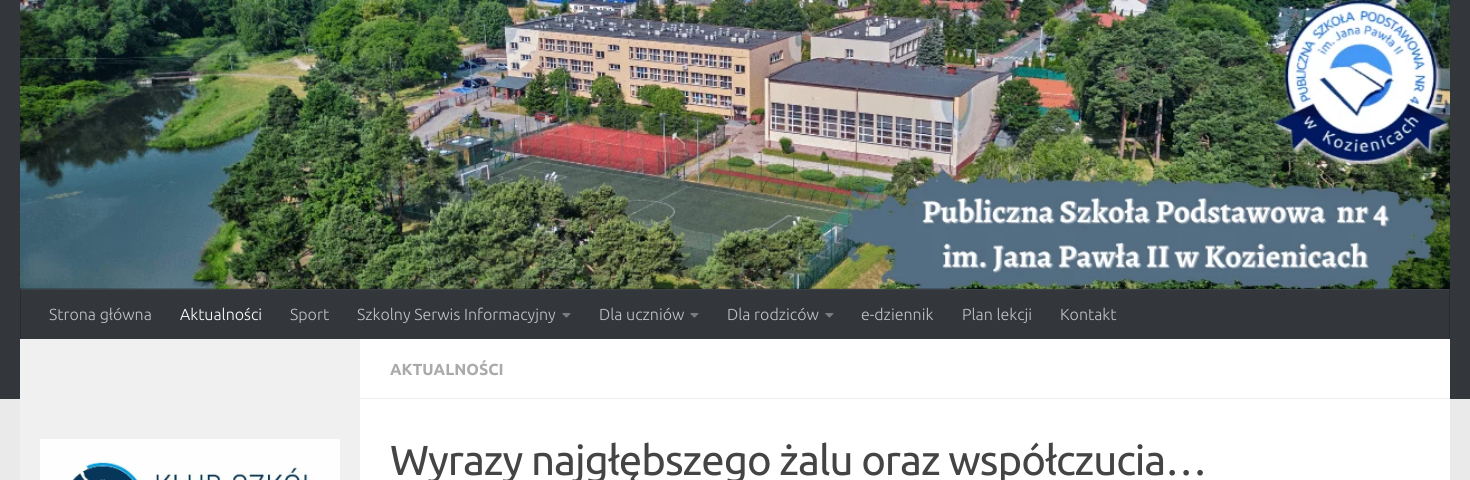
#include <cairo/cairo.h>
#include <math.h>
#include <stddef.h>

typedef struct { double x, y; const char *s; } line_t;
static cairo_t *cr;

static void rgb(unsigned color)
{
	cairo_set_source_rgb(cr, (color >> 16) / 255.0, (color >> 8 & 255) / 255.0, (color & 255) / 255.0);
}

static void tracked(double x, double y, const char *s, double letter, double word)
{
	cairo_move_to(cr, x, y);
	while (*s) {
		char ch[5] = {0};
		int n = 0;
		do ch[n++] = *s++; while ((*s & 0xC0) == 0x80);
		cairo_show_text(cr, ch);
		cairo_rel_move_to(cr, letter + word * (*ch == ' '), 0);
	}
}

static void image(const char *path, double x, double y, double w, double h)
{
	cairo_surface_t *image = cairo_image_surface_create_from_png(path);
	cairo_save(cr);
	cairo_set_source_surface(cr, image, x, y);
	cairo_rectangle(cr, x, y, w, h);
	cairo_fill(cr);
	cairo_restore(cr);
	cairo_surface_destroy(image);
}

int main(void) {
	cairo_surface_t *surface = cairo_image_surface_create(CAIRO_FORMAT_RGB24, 1470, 480);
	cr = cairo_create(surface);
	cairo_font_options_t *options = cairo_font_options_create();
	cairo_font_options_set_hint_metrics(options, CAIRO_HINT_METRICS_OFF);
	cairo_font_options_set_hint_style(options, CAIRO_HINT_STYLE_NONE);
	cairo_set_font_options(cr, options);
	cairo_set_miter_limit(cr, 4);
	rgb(0xeaeaea);
	cairo_paint(cr);
	rgb(0x33363b);
	cairo_rectangle(cr, 0, 0, 1470, 399);
	cairo_fill(cr);
	rgb(0x3d4045);
	cairo_rectangle(cr, 20, 289, 1430, 1);
	cairo_fill(cr);
	image("img/1.png", 20, 0, 1430, 289);
	cairo_set_source_rgba(cr, 0, 0, 0, 0.2);
	cairo_rectangle(cr, 20, 288, 1430, 1);
	cairo_fill(cr);
	rgb(0x292b2f);
	cairo_rectangle(cr, 1449, 289, 1, 50);
	cairo_fill(cr);
	rgb(0x343639);
	cairo_rectangle(cr, 1449, 289, 1, 1);
	cairo_fill(cr);
	rgb(0x292b2f);
	cairo_rectangle(cr, 20, 289, 1, 50);
	cairo_fill(cr);
	rgb(0x343639);
	cairo_rectangle(cr, 20, 289, 1, 1);
	cairo_fill(cr);
	image("img/2.png", 562, 313, 9, 5);
	image("img/2.png", 690, 313, 9, 5);
	image("img/2.png", 825, 313, 9, 5);
	rgb(0xffffff);
	cairo_rectangle(cr, 360, 339, 1090, 141);
	cairo_fill(cr);
	rgb(0xf0f0f0);
	cairo_rectangle(cr, 20, 339, 340, 141);
	cairo_fill(cr);
	image("img/3.png", 40, 439, 300, 41);
	rgb(0xeeeeee);
	cairo_rectangle(cr, 360, 398, 1090, 1);
	cairo_fill(cr);
	cairo_select_font_face(cr, "Ubuntu Light", CAIRO_FONT_SLANT_NORMAL, CAIRO_FONT_WEIGHT_NORMAL);
	cairo_set_font_size(cr, 16);
	rgb(0xc2c3c4);
	cairo_move_to(cr, 49, 320);
	cairo_show_text(cr, "Strona główna");
	rgb(0xffffff);
	cairo_move_to(cr, 180, 320);
	cairo_show_text(cr, "Aktualności");
	rgb(0xc2c3c4);
	{
		static const line_t items[] = {
			{290, 320, "Sport"},
			{357, 320, "Szkolny Serwis Informacyjny"},
			{599, 320, "Dla uczniów"},
			{727, 320, "Dla rodziców"},
			{861, 320, "e-dziennik"},
			{962, 320, "Plan lekcji"},
			{1060, 320, "Kontakt"},
		};
		for (size_t i = 0; i < sizeof items / sizeof *items; i++) {
			cairo_move_to(cr, items[i].x, items[i].y);
			cairo_show_text(cr, items[i].s);
		}
	}
	cairo_select_font_face(cr, "Ubuntu", CAIRO_FONT_SLANT_NORMAL, CAIRO_FONT_WEIGHT_BOLD);
	rgb(0xaaaaaa);
	cairo_move_to(cr, 390, 375);
	cairo_show_text(cr, "AKTUALNOŚCI");
	cairo_select_font_face(cr, "Ubuntu", CAIRO_FONT_SLANT_NORMAL, CAIRO_FONT_WEIGHT_NORMAL);
	cairo_set_font_size(cr, 41.9);
	rgb(0x444444);
	tracked(390, 475, "Wyrazy najgłębszego żalu oraz współczucia…", -1, 0);
	cairo_surface_write_to_png(surface, "page.png");
	cairo_font_options_destroy(options);
	cairo_destroy(cr);
	cairo_surface_destroy(surface);
	return 0;
}
